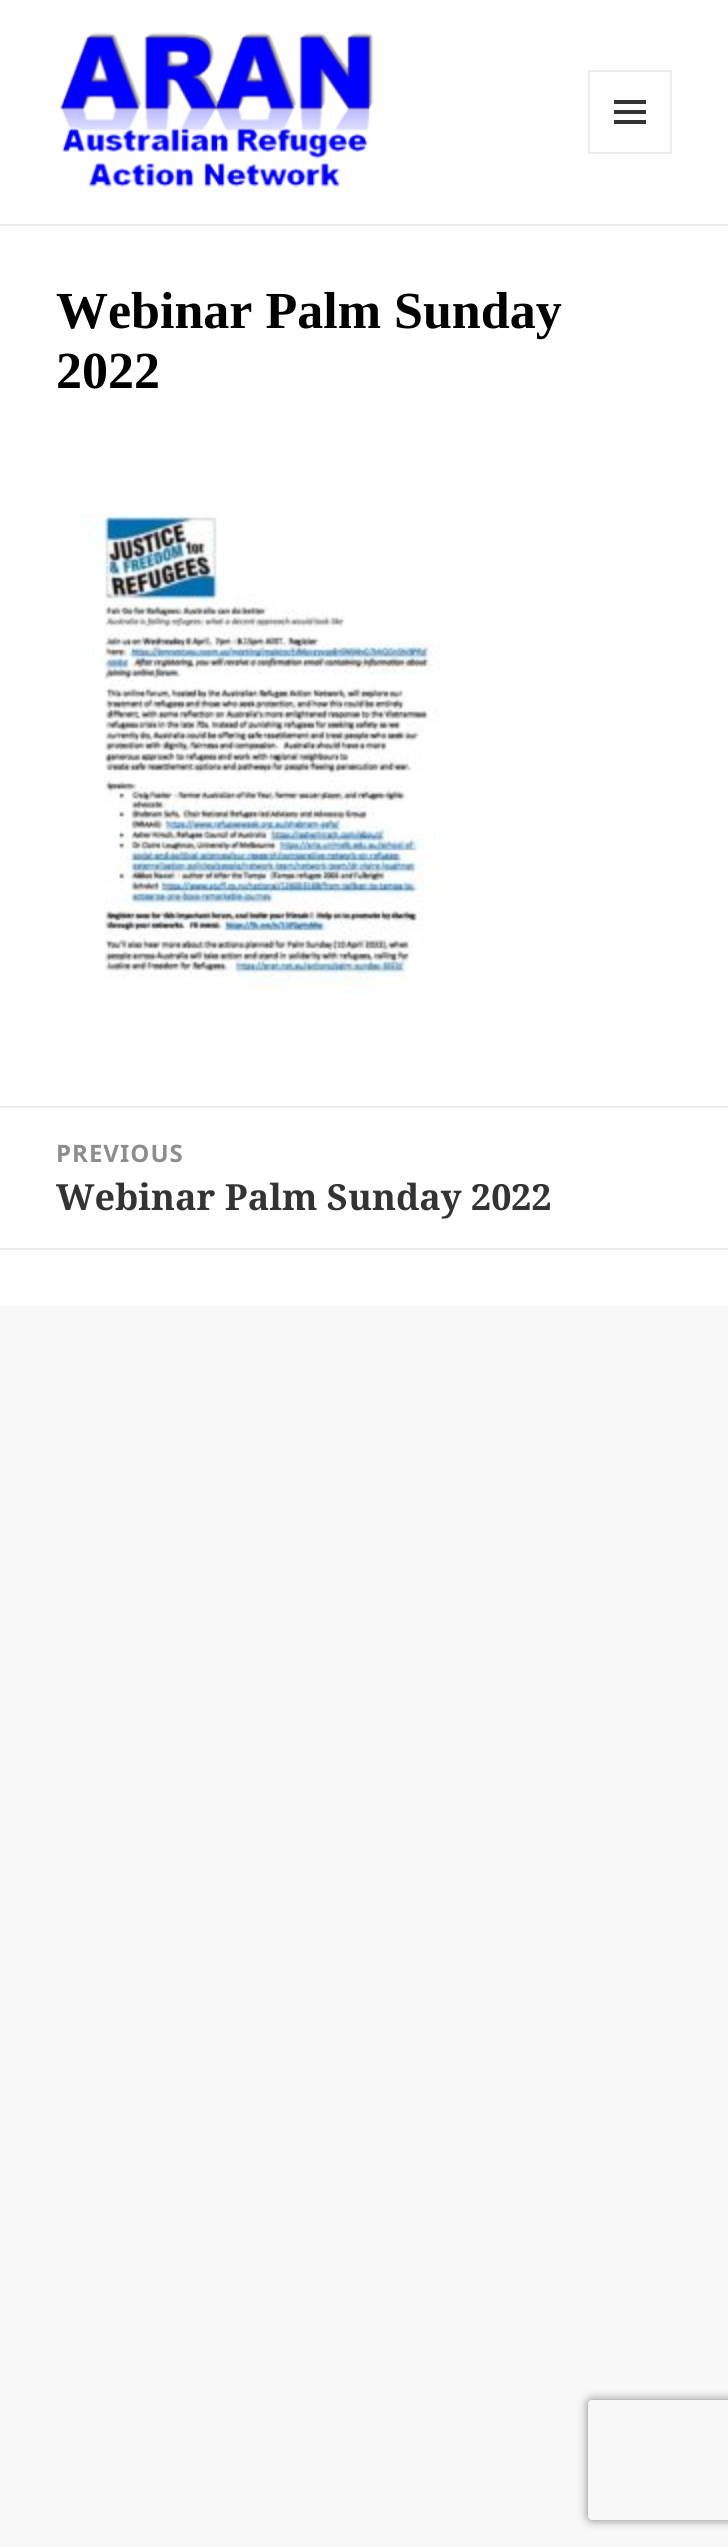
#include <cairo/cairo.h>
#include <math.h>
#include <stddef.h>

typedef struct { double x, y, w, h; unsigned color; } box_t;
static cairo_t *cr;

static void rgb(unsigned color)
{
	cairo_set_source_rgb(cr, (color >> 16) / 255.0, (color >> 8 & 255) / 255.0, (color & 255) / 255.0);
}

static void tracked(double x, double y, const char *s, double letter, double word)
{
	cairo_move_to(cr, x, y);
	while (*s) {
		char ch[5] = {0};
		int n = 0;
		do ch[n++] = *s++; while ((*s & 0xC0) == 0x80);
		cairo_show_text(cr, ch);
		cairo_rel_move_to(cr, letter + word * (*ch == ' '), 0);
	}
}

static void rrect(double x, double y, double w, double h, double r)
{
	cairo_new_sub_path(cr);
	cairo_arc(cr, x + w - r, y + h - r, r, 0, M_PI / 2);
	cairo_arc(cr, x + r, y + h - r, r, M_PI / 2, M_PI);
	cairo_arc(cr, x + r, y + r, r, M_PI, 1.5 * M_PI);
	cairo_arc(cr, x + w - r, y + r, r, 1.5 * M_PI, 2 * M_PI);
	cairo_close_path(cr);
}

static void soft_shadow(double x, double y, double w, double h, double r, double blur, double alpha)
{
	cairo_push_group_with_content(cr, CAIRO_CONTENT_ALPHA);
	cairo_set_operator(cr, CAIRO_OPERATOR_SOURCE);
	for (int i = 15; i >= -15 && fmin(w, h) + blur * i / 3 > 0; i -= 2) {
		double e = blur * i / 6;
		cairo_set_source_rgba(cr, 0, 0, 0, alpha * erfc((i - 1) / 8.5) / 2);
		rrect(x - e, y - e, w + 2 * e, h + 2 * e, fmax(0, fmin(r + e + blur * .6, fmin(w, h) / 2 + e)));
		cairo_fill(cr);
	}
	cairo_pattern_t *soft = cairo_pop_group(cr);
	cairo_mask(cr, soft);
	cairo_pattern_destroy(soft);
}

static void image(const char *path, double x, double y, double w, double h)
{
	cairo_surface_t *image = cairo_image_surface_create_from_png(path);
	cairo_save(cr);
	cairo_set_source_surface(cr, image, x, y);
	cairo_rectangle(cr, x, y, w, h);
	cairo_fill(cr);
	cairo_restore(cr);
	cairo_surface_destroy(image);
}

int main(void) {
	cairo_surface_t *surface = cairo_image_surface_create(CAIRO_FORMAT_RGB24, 728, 2547);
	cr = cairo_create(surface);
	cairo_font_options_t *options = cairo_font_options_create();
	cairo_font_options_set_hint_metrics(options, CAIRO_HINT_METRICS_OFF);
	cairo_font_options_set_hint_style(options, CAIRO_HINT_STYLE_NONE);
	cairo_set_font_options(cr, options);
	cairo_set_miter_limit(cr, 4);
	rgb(0xf8f8f8);
	cairo_paint(cr);
	rgb(0xffffff);
	cairo_rectangle(cr, 0, 0, 728, 224);
	cairo_fill(cr);
	rgb(0xebebeb);
	cairo_rectangle(cr, 0, 224, 728, 2);
	cairo_fill(cr);
	image("img/1.png", 59, 32, 315, 156);
	cairo_rectangle(cr, 589, 71, 82, 82);
	cairo_stroke(cr);
	image("img/2.png", 614, 100, 32, 24);
	rgb(0xffffff);
	cairo_rectangle(cr, 0, 226, 728, 880);
	cairo_fill(cr);
	image("img/3.png", 87, 513, 353, 481);
	{
		static const box_t items[] = {
			{0, 1108, 728, 140, 0xffffff},
			{0, 1106, 728, 2, 0xebebeb},
			{0, 1250, 728, 56, 0xffffff},
			{0, 1248, 728, 2, 0xebebeb},
		};
		for (size_t i = 0; i < sizeof items / sizeof *items; i++) {
			rgb(items[i].color);
			cairo_rectangle(cr, items[i].x, items[i].y, items[i].w, items[i].h);
			cairo_fill(cr);
		}
	}
	cairo_save(cr);
	cairo_set_fill_rule(cr, CAIRO_FILL_RULE_EVEN_ODD);
	cairo_new_path(cr);
	cairo_move_to(cr, 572, 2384);
	cairo_line_to(cr, 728, 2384);
	cairo_line_to(cr, 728, 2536);
	cairo_line_to(cr, 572, 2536);
	cairo_close_path(cr);
	cairo_move_to(cr, 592, 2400);
	cairo_line_to(cr, 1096, 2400);
	cairo_curve_to(cr, 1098, 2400, 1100, 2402, 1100, 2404);
	cairo_line_to(cr, 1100, 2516);
	cairo_curve_to(cr, 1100, 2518, 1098, 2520, 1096, 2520);
	cairo_line_to(cr, 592, 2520);
	cairo_curve_to(cr, 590, 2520, 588, 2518, 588, 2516);
	cairo_line_to(cr, 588, 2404);
	cairo_curve_to(cr, 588, 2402, 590, 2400, 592, 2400);
	cairo_close_path(cr);
	cairo_clip(cr);
	rgb(0x808080);
	soft_shadow(588, 2400, 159, 120, 4, 5, 1);
	cairo_restore(cr);
	cairo_select_font_face(cr, "Liberation Serif", CAIRO_FONT_SLANT_NORMAL, CAIRO_FONT_WEIGHT_BOLD);
	cairo_set_font_size(cr, 52);
	rgb(0x000000);
	cairo_move_to(cr, 56, 328);
	cairo_show_text(cr, "Webinar Palm Sunday");
	cairo_move_to(cr, 56, 388);
	cairo_show_text(cr, "2022");
	cairo_select_font_face(cr, "Noto Sans", CAIRO_FONT_SLANT_NORMAL, CAIRO_FONT_WEIGHT_BOLD);
	cairo_set_font_size(cr, 24);
	rgb(0x8d8d8d);
	tracked(56, 1162, "PREVIOUS", 1, 0);
	cairo_select_font_face(cr, "Noto Serif", CAIRO_FONT_SLANT_NORMAL, CAIRO_FONT_WEIGHT_BOLD);
	cairo_set_font_size(cr, 36);
	rgb(0x333333);
	cairo_move_to(cr, 56, 1210);
	cairo_show_text(cr, "Webinar Palm Sunday 2022");
	cairo_surface_write_to_png(surface, "page.png");
	cairo_font_options_destroy(options);
	cairo_destroy(cr);
	cairo_surface_destroy(surface);
	return 0;
}
